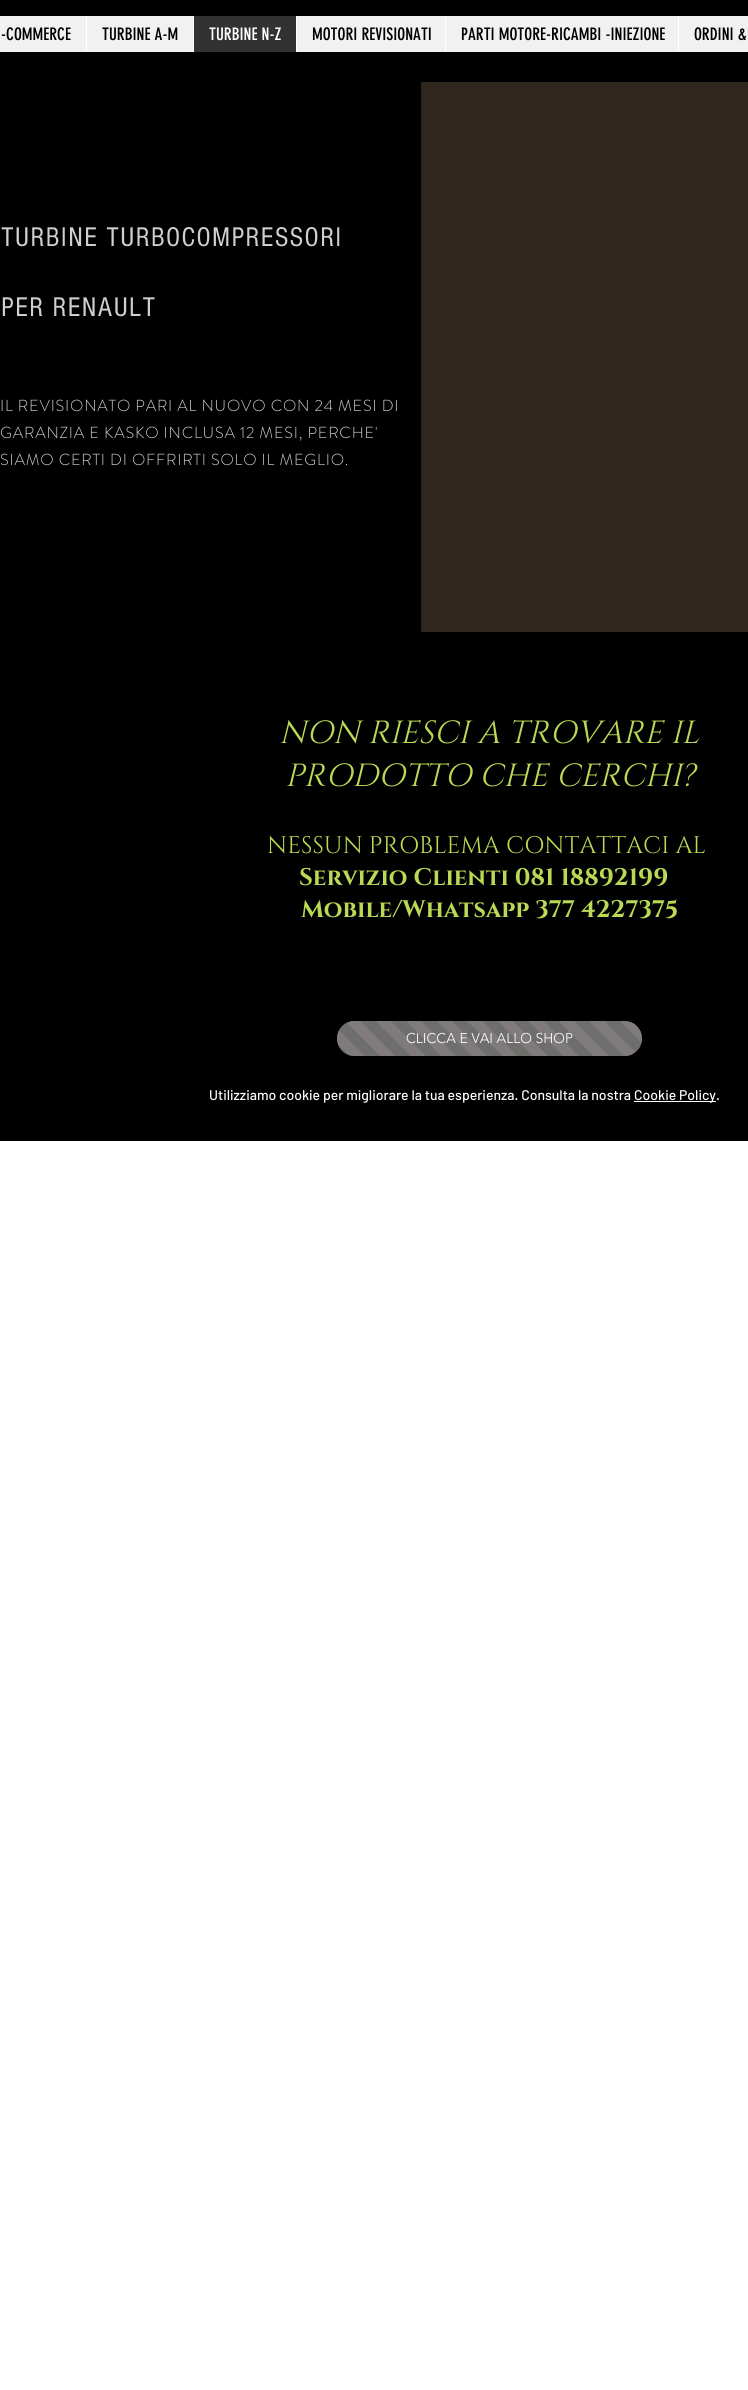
#include <cairo/cairo.h>
#include <math.h>
#include <stddef.h>

typedef struct { double x, y; const char *s; } line_t;
typedef struct { double x, y, w, h; unsigned color; } box_t;
static cairo_t *cr;

static void rgb(unsigned color)
{
	cairo_set_source_rgb(cr, (color >> 16) / 255.0, (color >> 8 & 255) / 255.0, (color & 255) / 255.0);
}

static void tracked(double x, double y, const char *s, double letter, double word)
{
	cairo_move_to(cr, x, y);
	while (*s) {
		char ch[5] = {0};
		int n = 0;
		do ch[n++] = *s++; while ((*s & 0xC0) == 0x80);
		cairo_show_text(cr, ch);
		cairo_rel_move_to(cr, letter + word * (*ch == ' '), 0);
	}
}

static void rrect(double x, double y, double w, double h, double r)
{
	cairo_new_sub_path(cr);
	cairo_arc(cr, x + w - r, y + h - r, r, 0, M_PI / 2);
	cairo_arc(cr, x + r, y + h - r, r, M_PI / 2, M_PI);
	cairo_arc(cr, x + r, y + r, r, M_PI, 1.5 * M_PI);
	cairo_arc(cr, x + w - r, y + r, r, 1.5 * M_PI, 2 * M_PI);
	cairo_close_path(cr);
}

static void image(const char *path, double x, double y, double w, double h)
{
	cairo_surface_t *image = cairo_image_surface_create_from_png(path);
	cairo_save(cr);
	cairo_set_source_surface(cr, image, x, y);
	cairo_rectangle(cr, x, y, w, h);
	cairo_fill(cr);
	cairo_restore(cr);
	cairo_surface_destroy(image);
}

int main(void) {
	cairo_surface_t *surface = cairo_image_surface_create(CAIRO_FORMAT_RGB24, 748, 2390);
	cr = cairo_create(surface);
	cairo_font_options_t *options = cairo_font_options_create();
	cairo_font_options_set_hint_metrics(options, CAIRO_HINT_METRICS_OFF);
	cairo_font_options_set_hint_style(options, CAIRO_HINT_STYLE_NONE);
	cairo_set_font_options(cr, options);
	cairo_set_miter_limit(cr, 4);
	rgb(0xffffff);
	cairo_paint(cr);
	{
		static const box_t items[] = {
			{0, 0, 748, 82, 0x000000},
			{0, 16, 748, 36, 0xf1f1f1},
			{86, 16, 1, 36, 0xffffff},
			{194, 16, 102, 36, 0x323232},
			{193, 16, 1, 36, 0xffffff},
			{296, 16, 1, 36, 0xffffff},
			{445, 16, 1, 36, 0xffffff},
			{678, 16, 1, 36, 0xffffff},
			{0, 82, 421, 550, 0x000000},
			{421, 82, 327, 550, 0x2f261e},
			{0, 632, 748, 509, 0x000000},
		};
		for (size_t i = 0; i < sizeof items / sizeof *items; i++) {
			rgb(items[i].color);
			cairo_rectangle(cr, items[i].x, items[i].y, items[i].w, items[i].h);
			cairo_fill(cr);
		}
	}
	rgb(0x4b5a51);
	rrect(337, 1021, 305, 35, 17.5);
	cairo_fill(cr);
	image("img/1.png", 337, 1021, 305, 35);
	rgb(0xffffff);
	cairo_rectangle(cr, 634, 1101, 82, 1);
	cairo_fill(cr);
	cairo_select_font_face(cr, "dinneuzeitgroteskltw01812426", CAIRO_FONT_SLANT_NORMAL, CAIRO_FONT_WEIGHT_NORMAL);
	cairo_set_font_size(cr, 17);
	rgb(0x000000);
	cairo_move_to(cr, 1, 40);
	cairo_show_text(cr, "-COMMERCE");
	cairo_move_to(cr, 102, 40);
	cairo_show_text(cr, "TURBINE A-M");
	rgb(0xffffff);
	cairo_move_to(cr, 209, 40);
	cairo_show_text(cr, "TURBINE N-Z");
	rgb(0x000000);
	{
		static const line_t items[] = {
			{312, 40, "MOTORI REVISIONATI"},
			{461, 40, "PARTI MOTORE-RICAMBI -INIEZIONE"},
			{694, 40, "ORDINI &"},
		};
		for (size_t i = 0; i < sizeof items / sizeof *items; i++) {
			cairo_move_to(cr, items[i].x, items[i].y);
			cairo_show_text(cr, items[i].s);
		}
	}
	cairo_select_font_face(cr, "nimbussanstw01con", CAIRO_FONT_SLANT_NORMAL, CAIRO_FONT_WEIGHT_NORMAL);
	cairo_set_font_size(cr, 28);
	rgb(0xcfcfd2);
	tracked(1, 246, "TURBINE TURBOCOMPRESSORI", 1.4, 0);
	tracked(1, 316, "PER RENAULT", 1.4, 0);
	cairo_select_font_face(cr, "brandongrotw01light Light", CAIRO_FONT_SLANT_NORMAL, CAIRO_FONT_WEIGHT_NORMAL);
	cairo_set_font_size(cr, 16);
	{
		static const line_t items[] = {
			{0, 411, "IL REVISIONATO PARI AL NUOVO CON 24 MESI DI"},
			{0, 438, "GARANZIA E KASKO INCLUSA 12 MESI, PERCHE'"},
			{0, 465, "SIAMO CERTI DI OFFRIRTI SOLO IL MEGLIO."},
		};
		for (size_t i = 0; i < sizeof items / sizeof *items; i++) {
			tracked(items[i].x, items[i].y, items[i].s, 0.8, 0);
		}
	}
	cairo_select_font_face(cr, "Cinzel", CAIRO_FONT_SLANT_ITALIC, CAIRO_FONT_WEIGHT_NORMAL);
	cairo_set_font_size(cr, 32);
	rgb(0xbada55);
	cairo_move_to(cr, 279, 743);
	cairo_show_text(cr, "NON RIESCI A TROVARE IL");
	cairo_move_to(cr, 285, 786);
	cairo_show_text(cr, "PRODOTTO CHE CERCHI?");
	cairo_select_font_face(cr, "Cinzel", CAIRO_FONT_SLANT_NORMAL, CAIRO_FONT_WEIGHT_NORMAL);
	cairo_set_font_size(cr, 24);
	cairo_move_to(cr, 267, 853);
	cairo_show_text(cr, "NESSUN PROBLEMA CONTATTACI AL");
	cairo_select_font_face(cr, "Cinzel", CAIRO_FONT_SLANT_NORMAL, CAIRO_FONT_WEIGHT_BOLD);
	cairo_move_to(cr, 299, 885);
	cairo_show_text(cr, "Servizio Clienti 081 18892199");
	cairo_move_to(cr, 301, 917);
	cairo_show_text(cr, "Mobile/Whatsapp 377 4227375");
	cairo_select_font_face(cr, "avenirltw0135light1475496 Light", CAIRO_FONT_SLANT_NORMAL, CAIRO_FONT_WEIGHT_NORMAL);
	cairo_set_font_size(cr, 14);
	rgb(0xffffff);
	cairo_move_to(cr, 406, 1043);
	cairo_show_text(cr, "CLICCA E VAI ALLO SHOP");
	cairo_select_font_face(cr, "Barlow Medium", CAIRO_FONT_SLANT_NORMAL, CAIRO_FONT_WEIGHT_NORMAL);
	cairo_move_to(cr, 209, 1100);
	cairo_show_text(cr, "Utilizziamo cookie per migliorare la tua esperienza. Consulta la nostra");
	cairo_move_to(cr, 634, 1100);
	cairo_show_text(cr, "Cookie Policy.");
	cairo_surface_write_to_png(surface, "page.png");
	cairo_font_options_destroy(options);
	cairo_destroy(cr);
	cairo_surface_destroy(surface);
	return 0;
}
